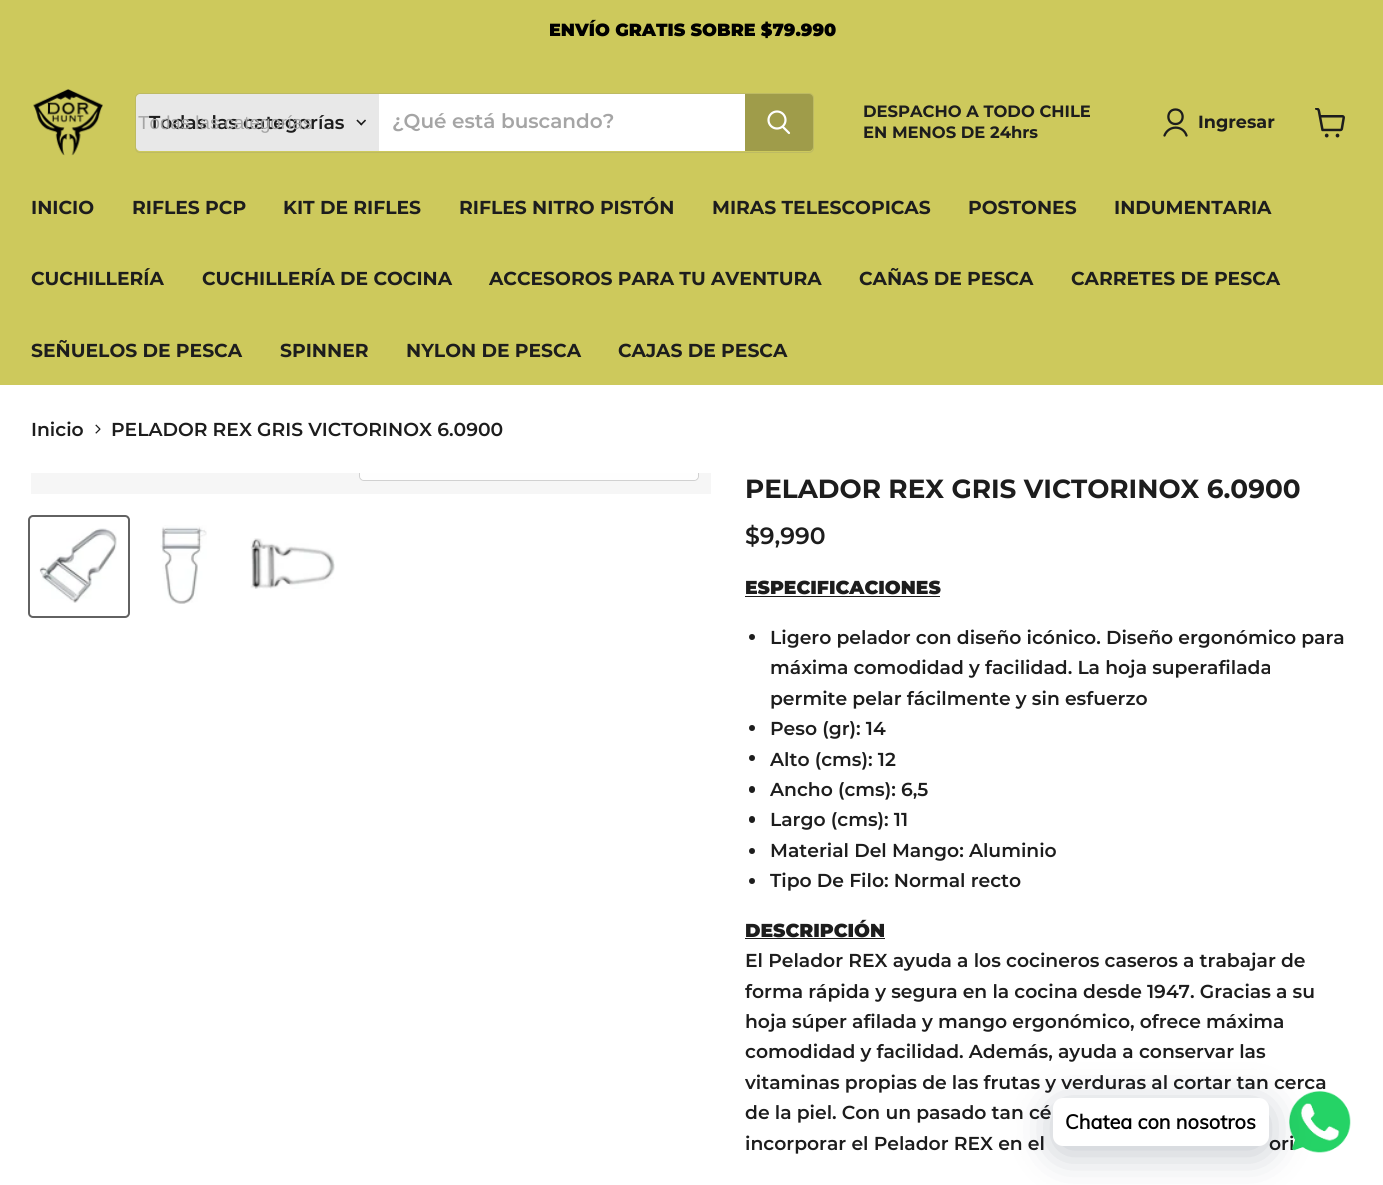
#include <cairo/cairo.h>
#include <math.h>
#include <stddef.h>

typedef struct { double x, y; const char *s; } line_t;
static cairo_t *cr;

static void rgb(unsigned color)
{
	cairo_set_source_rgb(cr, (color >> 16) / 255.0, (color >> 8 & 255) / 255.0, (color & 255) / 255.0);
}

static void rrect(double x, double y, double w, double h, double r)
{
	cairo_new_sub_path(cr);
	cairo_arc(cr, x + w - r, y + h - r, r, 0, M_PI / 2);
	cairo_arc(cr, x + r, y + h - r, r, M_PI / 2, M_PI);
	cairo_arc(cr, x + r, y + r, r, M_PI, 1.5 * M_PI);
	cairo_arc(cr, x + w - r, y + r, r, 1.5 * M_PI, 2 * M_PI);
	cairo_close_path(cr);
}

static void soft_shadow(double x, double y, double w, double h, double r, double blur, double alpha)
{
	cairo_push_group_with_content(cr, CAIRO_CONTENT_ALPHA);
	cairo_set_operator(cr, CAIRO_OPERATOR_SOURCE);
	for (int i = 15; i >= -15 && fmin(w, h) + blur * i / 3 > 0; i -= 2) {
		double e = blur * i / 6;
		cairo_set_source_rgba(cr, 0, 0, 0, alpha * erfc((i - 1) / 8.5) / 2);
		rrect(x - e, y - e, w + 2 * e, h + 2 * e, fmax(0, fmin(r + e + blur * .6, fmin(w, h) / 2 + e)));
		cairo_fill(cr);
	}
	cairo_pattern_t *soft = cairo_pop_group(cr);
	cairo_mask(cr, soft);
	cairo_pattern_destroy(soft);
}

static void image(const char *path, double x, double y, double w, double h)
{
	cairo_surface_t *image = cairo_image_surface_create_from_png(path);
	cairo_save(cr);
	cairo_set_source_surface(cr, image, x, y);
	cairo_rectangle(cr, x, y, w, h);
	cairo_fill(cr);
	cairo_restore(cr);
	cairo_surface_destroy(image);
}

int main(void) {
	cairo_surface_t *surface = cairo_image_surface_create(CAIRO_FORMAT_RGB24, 1383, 1185);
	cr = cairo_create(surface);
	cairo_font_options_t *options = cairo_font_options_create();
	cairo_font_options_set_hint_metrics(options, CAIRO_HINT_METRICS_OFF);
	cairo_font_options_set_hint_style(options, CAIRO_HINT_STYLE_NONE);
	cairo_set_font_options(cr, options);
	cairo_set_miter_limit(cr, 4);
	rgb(0xffffff);
	cairo_paint(cr);
	rgb(0xcdc95c);
	cairo_rectangle(cr, 0, 0, 1383, 385);
	cairo_fill(cr);
	image("img/1.png", 33, 89, 70, 67);
	rrect(135.5, 93.5, 678, 59, 4.5);
	cairo_set_source_rgba(cr, 0.502, 0.502, 0.502, 0.2);
	cairo_set_line_width(cr, 1);
	cairo_stroke(cr);
	rgb(0xe8e8e8);
	cairo_new_path(cr);
	cairo_move_to(cr, 140, 94);
	cairo_line_to(cr, 379, 94);
	cairo_line_to(cr, 379, 151);
	cairo_line_to(cr, 140, 151);
	cairo_curve_to(cr, 138, 151, 136, 149, 136, 147);
	cairo_line_to(cr, 136, 98);
	cairo_curve_to(cr, 136, 96, 138, 94, 140, 94);
	cairo_close_path(cr);
	cairo_fill(cr);
	image("img/2.png", 356, 119, 10, 7);
	rgb(0xffffff);
	cairo_rectangle(cr, 379, 94, 366, 57);
	cairo_fill(cr);
	rgb(0x9f9c4a);
	cairo_new_path(cr);
	cairo_move_to(cr, 745.5, 94.5);
	cairo_line_to(cr, 809, 94.5);
	cairo_curve_to(cr, 811, 94.5, 812.5, 96, 812.5, 98);
	cairo_line_to(cr, 812.5, 147);
	cairo_curve_to(cr, 812.5, 149, 811, 150.5, 809, 150.5);
	cairo_line_to(cr, 745.5, 150.5);
	cairo_close_path(cr);
	cairo_fill_preserve(cr);
	cairo_stroke(cr);
	cairo_new_path(cr);
	cairo_move_to(cr, 789, 133);
	cairo_line_to(cr, 783, 127);
	rgb(0xffffff);
	cairo_set_line_width(cr, 2.2);
	cairo_set_line_cap(cr, CAIRO_LINE_CAP_ROUND);
	cairo_stroke(cr);
	cairo_arc(cr, 777, 120, 8.5, 0, 2 * M_PI);
	cairo_set_line_cap(cr, CAIRO_LINE_CAP_BUTT);
	cairo_stroke(cr);
	cairo_new_path(cr);
	cairo_move_to(cr, 1175.5, 124);
	cairo_curve_to(cr, 1185, 124, 1185, 109.5, 1175.5, 109.5);
	cairo_curve_to(cr, 1166, 109.5, 1166, 124, 1175.5, 124);
	cairo_close_path(cr);
	cairo_move_to(cr, 1186.5, 135.5);
	cairo_curve_to(cr, 1183, 125, 1168.5, 125, 1164.5, 135.5);
	rgb(0x1d1d1d);
	cairo_set_line_width(cr, 2.3);
	cairo_set_line_cap(cr, CAIRO_LINE_CAP_ROUND);
	cairo_set_line_join(cr, CAIRO_LINE_JOIN_ROUND);
	cairo_stroke(cr);
	image("img/3.png", 1315, 108, 30, 30);
	image("img/4.png", 95, 424, 6, 10);
	rgb(0xf6f6f6);
	cairo_rectangle(cr, 31, 473, 680, 21);
	cairo_fill(cr);
	cairo_save(cr);
	cairo_rectangle(cr, 31, 473, 680, 21);
	cairo_clip(cr);
	rrect(359.5, 445.5, 339, 35, 4.5);
	rgb(0xd1d1d1);
	cairo_set_line_width(cr, 1);
	cairo_set_line_cap(cr, CAIRO_LINE_CAP_BUTT);
	cairo_set_line_join(cr, CAIRO_LINE_JOIN_MITER);
	cairo_stroke(cr);
	cairo_restore(cr);
	cairo_set_source_rgba(cr, 1, 1, 1, 0.9);
	cairo_new_path(cr);
	cairo_move_to(cr, 360, 473);
	cairo_line_to(cr, 698, 473);
	cairo_line_to(cr, 698, 476);
	cairo_curve_to(cr, 698, 478, 696, 480, 694, 480);
	cairo_line_to(cr, 364, 480);
	cairo_curve_to(cr, 362, 480, 360, 478, 360, 476);
	cairo_close_path(cr);
	cairo_fill(cr);
	rrect(29, 516, 100, 101, 4);
	rgb(0x626262);
	cairo_set_line_width(cr, 2);
	cairo_set_line_cap(cr, CAIRO_LINE_CAP_BUTT);
	cairo_set_line_join(cr, CAIRO_LINE_JOIN_MITER);
	cairo_stroke(cr);
	image("img/5.png", 39, 528, 78, 75);
	image("img/6.png", 160, 525, 47, 79);
	image("img/7.png", 250, 538, 85, 51);
	rgb(0x1d1d1d);
	cairo_rectangle(cr, 745, 596, 195, 1);
	cairo_fill(cr);
	cairo_arc(cr, 752, 637, 3, 0, 2 * M_PI);
	cairo_fill(cr);
	cairo_arc(cr, 752, 728, 3, 0, 2 * M_PI);
	cairo_fill(cr);
	cairo_arc(cr, 752, 758, 3, 0, 2 * M_PI);
	cairo_fill(cr);
	rrect(749, 786, 6, 7, 3);
	cairo_fill(cr);
	rrect(749, 816, 6, 7, 3);
	cairo_fill(cr);
	cairo_arc(cr, 752, 851, 3, 0, 2 * M_PI);
	cairo_fill(cr);
	cairo_arc(cr, 752, 881, 3, 0, 2 * M_PI);
	cairo_fill(cr);
	cairo_rectangle(cr, 745, 938, 140, 1);
	cairo_fill(cr);
	cairo_select_font_face(cr, "Montserrat Black", CAIRO_FONT_SLANT_NORMAL, CAIRO_FONT_WEIGHT_NORMAL);
	cairo_set_font_size(cr, 17.6);
	rgb(0x000000);
	cairo_move_to(cr, 549, 36);
	cairo_show_text(cr, "ENVÍO GRATIS SOBRE $79.990");
	cairo_select_font_face(cr, "Montserrat SemiBold", CAIRO_FONT_SLANT_NORMAL, CAIRO_FONT_WEIGHT_NORMAL);
	cairo_set_font_size(cr, 18.75);
	rgb(0x1d1d1d);
	cairo_move_to(cr, 149, 129);
	cairo_show_text(cr, "Todas las categorías");
	cairo_select_font_face(cr, "Liberation Sans", CAIRO_FONT_SLANT_NORMAL, CAIRO_FONT_WEIGHT_NORMAL);
	rgb(0xa5a5a5);
	cairo_move_to(cr, 138, 129);
	cairo_show_text(cr, "Todas las categorías");
	cairo_select_font_face(cr, "Montserrat SemiBold", CAIRO_FONT_SLANT_NORMAL, CAIRO_FONT_WEIGHT_NORMAL);
	cairo_set_font_size(cr, 20);
	cairo_move_to(cr, 392, 128);
	cairo_show_text(cr, "¿Qué está buscando?");
	cairo_select_font_face(cr, "Montserrat", CAIRO_FONT_SLANT_NORMAL, CAIRO_FONT_WEIGHT_BOLD);
	cairo_set_font_size(cr, 16.4);
	rgb(0x1d1d1d);
	cairo_move_to(cr, 863, 117);
	cairo_show_text(cr, "DESPACHO A TODO CHILE");
	cairo_move_to(cr, 863, 138);
	cairo_show_text(cr, "EN MENOS DE 24hrs");
	cairo_set_font_size(cr, 17.6);
	cairo_move_to(cr, 1198, 128);
	cairo_show_text(cr, "Ingresar");
	cairo_set_font_size(cr, 18.75);
	{
		static const line_t items[] = {
			{31, 214, "INICIO"},
			{132, 214, "RIFLES PCP"},
			{283, 214, "KIT DE RIFLES"},
			{459, 214, "RIFLES NITRO PISTÓN"},
			{712, 214, "MIRAS TELESCOPICAS"},
			{968, 214, "POSTONES"},
			{1114, 214, "INDUMENTARIA"},
			{31, 285, "CUCHILLERÍA"},
			{202, 285, "CUCHILLERÍA DE COCINA"},
			{489, 285, "ACCESOROS PARA TU AVENTURA"},
			{859, 285, "CAÑAS DE PESCA"},
			{1071, 285, "CARRETES DE PESCA"},
			{31, 357, "SEÑUELOS DE PESCA"},
			{280, 357, "SPINNER"},
			{406, 357, "NYLON DE PESCA"},
			{618, 357, "CAJAS DE PESCA"},
		};
		for (size_t i = 0; i < sizeof items / sizeof *items; i++) {
			cairo_move_to(cr, items[i].x, items[i].y);
			cairo_show_text(cr, items[i].s);
		}
	}
	cairo_select_font_face(cr, "Montserrat SemiBold", CAIRO_FONT_SLANT_NORMAL, CAIRO_FONT_WEIGHT_NORMAL);
	cairo_move_to(cr, 31, 436);
	cairo_show_text(cr, "Inicio");
	cairo_move_to(cr, 111, 436);
	cairo_show_text(cr, "PELADOR REX GRIS VICTORINOX 6.0900");
	cairo_select_font_face(cr, "Montserrat", CAIRO_FONT_SLANT_NORMAL, CAIRO_FONT_WEIGHT_BOLD);
	cairo_set_font_size(cr, 26.25);
	cairo_move_to(cr, 745, 498);
	cairo_show_text(cr, "PELADOR REX GRIS VICTORINOX 6.0900");
	cairo_select_font_face(cr, "Montserrat SemiBold", CAIRO_FONT_SLANT_NORMAL, CAIRO_FONT_WEIGHT_NORMAL);
	cairo_set_font_size(cr, 23.5);
	cairo_move_to(cr, 745, 544);
	cairo_show_text(cr, "$9,990");
	cairo_select_font_face(cr, "Montserrat Black", CAIRO_FONT_SLANT_NORMAL, CAIRO_FONT_WEIGHT_NORMAL);
	cairo_set_font_size(cr, 18.75);
	cairo_move_to(cr, 745, 594);
	cairo_show_text(cr, "ESPECIFICACIONES");
	cairo_select_font_face(cr, "Montserrat SemiBold", CAIRO_FONT_SLANT_NORMAL, CAIRO_FONT_WEIGHT_NORMAL);
	{
		static const line_t items[] = {
			{770, 644, "Ligero pelador con diseño icónico. Diseño ergonómico para"},
			{770, 674, "máxima comodidad y facilidad. La hoja superafilada"},
			{770, 705, "permite pelar fácilmente y sin esfuerzo"},
			{770, 735, "Peso (gr): 14"},
			{770, 766, "Alto (cms): 12"},
			{770, 796, "Ancho (cms): 6,5"},
			{770, 826, "Largo (cms): 11"},
			{770, 857, "Material Del Mango: Aluminio"},
			{770, 887, "Tipo De Filo: Normal recto"},
		};
		for (size_t i = 0; i < sizeof items / sizeof *items; i++) {
			cairo_move_to(cr, items[i].x, items[i].y);
			cairo_show_text(cr, items[i].s);
		}
	}
	cairo_select_font_face(cr, "Montserrat Black", CAIRO_FONT_SLANT_NORMAL, CAIRO_FONT_WEIGHT_NORMAL);
	cairo_move_to(cr, 745, 937);
	cairo_show_text(cr, "DESCRIPCIÓN");
	cairo_select_font_face(cr, "Montserrat SemiBold", CAIRO_FONT_SLANT_NORMAL, CAIRO_FONT_WEIGHT_NORMAL);
	{
		static const line_t items[] = {
			{745, 967, "El Pelador REX ayuda a los cocineros caseros a trabajar de"},
			{745, 998, "forma rápida y segura en la cocina desde 1947. Gracias a su"},
			{745, 1028, "hoja súper afilada y mango ergonómico, ofrece máxima"},
			{745, 1058, "comodidad y facilidad. Además, ayuda a conservar las"},
			{745, 1089, "vitaminas propias de las frutas y verduras al cortar tan cerca"},
			{745, 1119, "de la piel. Con un pasado tan cé"},
			{745, 1150, "incorporar el Pelador REX en el"},
			{1269, 1150, "ori"},
		};
		for (size_t i = 0; i < sizeof items / sizeof *items; i++) {
			cairo_move_to(cr, items[i].x, items[i].y);
			cairo_show_text(cr, items[i].s);
		}
	}
	image("img/8.png", 1289, 1091, 62, 62);
	rgb(0x00122e);
	soft_shadow(1053, 1105, 216, 49, 10, 20, 0.24);
	rgb(0xffffff);
	rrect(1053, 1098, 216, 48, 10);
	cairo_fill(cr);
	cairo_select_font_face(cr, "Muli", CAIRO_FONT_SLANT_NORMAL, CAIRO_FONT_WEIGHT_BOLD);
	cairo_set_font_size(cr, 20);
	rgb(0x000000);
	cairo_move_to(cr, 1065, 1129);
	cairo_show_text(cr, "Chatea con nosotros");
	cairo_surface_write_to_png(surface, "page.png");
	cairo_font_options_destroy(options);
	cairo_destroy(cr);
	cairo_surface_destroy(surface);
	return 0;
}
